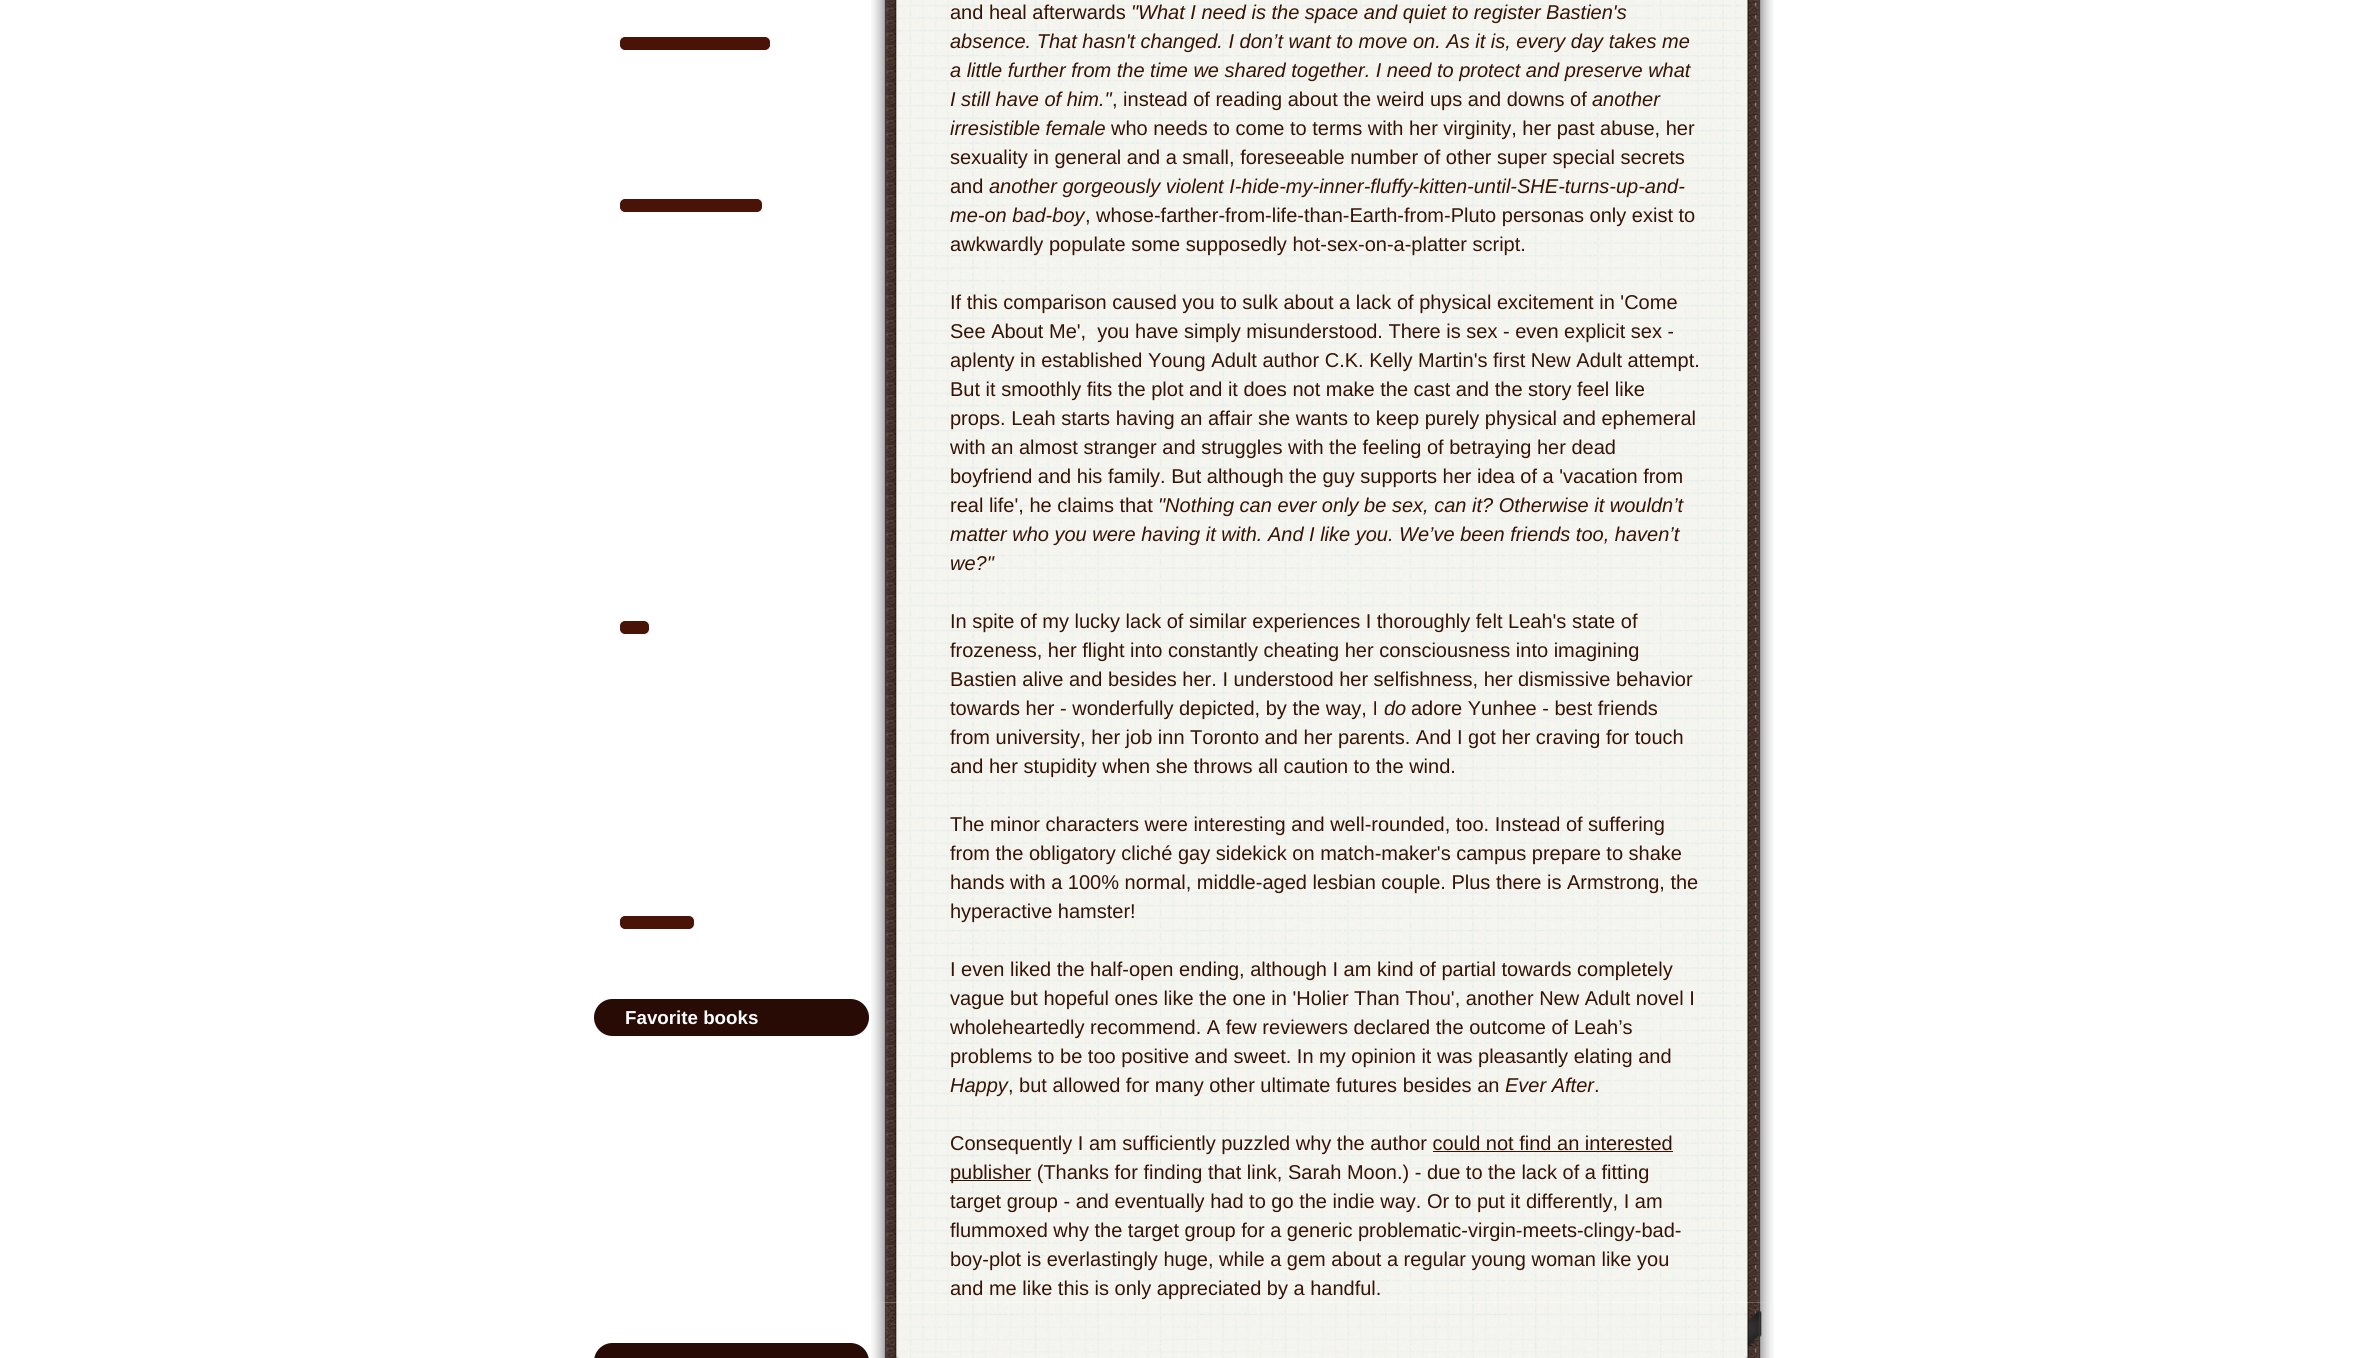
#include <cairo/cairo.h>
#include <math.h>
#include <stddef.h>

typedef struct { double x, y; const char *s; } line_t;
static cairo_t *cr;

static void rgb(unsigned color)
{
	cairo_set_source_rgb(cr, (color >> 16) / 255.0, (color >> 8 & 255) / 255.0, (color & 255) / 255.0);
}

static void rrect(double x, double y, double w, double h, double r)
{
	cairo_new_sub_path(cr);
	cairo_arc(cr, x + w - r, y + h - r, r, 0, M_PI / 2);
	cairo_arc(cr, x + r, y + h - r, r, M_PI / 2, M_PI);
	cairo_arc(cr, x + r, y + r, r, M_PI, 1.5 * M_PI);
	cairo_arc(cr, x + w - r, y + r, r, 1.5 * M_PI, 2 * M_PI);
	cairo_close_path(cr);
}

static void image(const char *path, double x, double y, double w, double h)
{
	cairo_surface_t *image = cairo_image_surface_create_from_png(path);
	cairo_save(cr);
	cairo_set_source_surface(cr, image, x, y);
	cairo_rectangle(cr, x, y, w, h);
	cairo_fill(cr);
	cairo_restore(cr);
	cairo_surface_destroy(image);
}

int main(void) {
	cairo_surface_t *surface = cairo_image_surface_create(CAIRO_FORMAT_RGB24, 2375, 1358);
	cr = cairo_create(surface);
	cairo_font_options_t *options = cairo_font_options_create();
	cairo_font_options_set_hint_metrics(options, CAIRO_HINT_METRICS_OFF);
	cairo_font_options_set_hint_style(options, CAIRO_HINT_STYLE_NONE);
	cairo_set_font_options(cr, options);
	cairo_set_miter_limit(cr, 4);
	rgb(0xffffff);
	cairo_paint(cr);
	rgb(0x491307);
	rrect(619.5, 36.5, 151, 14, 5.5);
	cairo_fill_preserve(cr);
	rgb(0xffffff);
	cairo_set_line_width(cr, 1);
	cairo_stroke(cr);
	rgb(0x491307);
	rrect(619.5, 198.5, 143, 14, 5.5);
	cairo_fill_preserve(cr);
	rgb(0xffffff);
	cairo_stroke(cr);
	rgb(0x491307);
	rrect(619.5, 620.5, 30, 14, 5.5);
	cairo_fill_preserve(cr);
	rgb(0xffffff);
	cairo_stroke(cr);
	rgb(0x491307);
	rrect(619.5, 915.5, 75, 14, 5.5);
	cairo_fill_preserve(cr);
	rgb(0xffffff);
	cairo_stroke(cr);
	rgb(0x280b05);
	rrect(594, 999, 275, 37, 18.5);
	cairo_fill(cr);
	rrect(594, 1343, 275, 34, 18.5);
	cairo_fill(cr);
	image("img/1.png", 871, 0, 903, 1303);
	rgb(0x351305);
	cairo_rectangle(cr, 1433, 1151, 240, 1);
	cairo_fill(cr);
	cairo_rectangle(cr, 950, 1180, 81, 1);
	cairo_fill(cr);
	image("img/2.png", 871, 1302, 903, 56);
	cairo_select_font_face(cr, "Liberation Sans", CAIRO_FONT_SLANT_NORMAL, CAIRO_FONT_WEIGHT_BOLD);
	cairo_set_font_size(cr, 18.75);
	rgb(0xffffff);
	cairo_move_to(cr, 625, 1024);
	cairo_show_text(cr, "Favorite books");
	cairo_select_font_face(cr, "Liberation Sans", CAIRO_FONT_SLANT_NORMAL, CAIRO_FONT_WEIGHT_NORMAL);
	cairo_set_font_size(cr, 20);
	rgb(0x351305);
	cairo_move_to(cr, 950, 19);
	cairo_show_text(cr, "and heal afterwards");
	cairo_select_font_face(cr, "Liberation Sans", CAIRO_FONT_SLANT_ITALIC, CAIRO_FONT_WEIGHT_NORMAL);
	{
		static const line_t items[] = {
			{1131, 19, "\"What I need is the space and quiet to register Bastien's"},
			{950, 48, "absence. That hasn't changed. I don’t want to move on. As it is, every day takes me"},
			{950, 77, "a little further from the time we shared together. I need to protect and preserve what"},
			{950, 106, "I still have of him.\""},
		};
		for (size_t i = 0; i < sizeof items / sizeof *items; i++) {
			cairo_move_to(cr, items[i].x, items[i].y);
			cairo_show_text(cr, items[i].s);
		}
	}
	cairo_select_font_face(cr, "Liberation Sans", CAIRO_FONT_SLANT_NORMAL, CAIRO_FONT_WEIGHT_NORMAL);
	cairo_move_to(cr, 1112, 106);
	cairo_show_text(cr, ", instead of reading about the weird ups and downs of");
	cairo_select_font_face(cr, "Liberation Sans", CAIRO_FONT_SLANT_ITALIC, CAIRO_FONT_WEIGHT_NORMAL);
	cairo_move_to(cr, 1592, 106);
	cairo_show_text(cr, "another");
	cairo_move_to(cr, 950, 135);
	cairo_show_text(cr, "irresistible female");
	cairo_select_font_face(cr, "Liberation Sans", CAIRO_FONT_SLANT_NORMAL, CAIRO_FONT_WEIGHT_NORMAL);
	{
		static const line_t items[] = {
			{1111, 135, "who needs to come to terms with her virginity, her past abuse, her"},
			{950, 164, "sexuality in general and a small, foreseeable number of other super special secrets"},
			{950, 193, "and"},
		};
		for (size_t i = 0; i < sizeof items / sizeof *items; i++) {
			cairo_move_to(cr, items[i].x, items[i].y);
			cairo_show_text(cr, items[i].s);
		}
	}
	cairo_select_font_face(cr, "Liberation Sans", CAIRO_FONT_SLANT_ITALIC, CAIRO_FONT_WEIGHT_NORMAL);
	cairo_move_to(cr, 989, 193);
	cairo_show_text(cr, "another gorgeously violent I-hide-my-inner-fluffy-kitten-until-SHE-turns-up-and-");
	cairo_move_to(cr, 950, 222);
	cairo_show_text(cr, "me-on bad-boy");
	cairo_select_font_face(cr, "Liberation Sans", CAIRO_FONT_SLANT_NORMAL, CAIRO_FONT_WEIGHT_NORMAL);
	{
		static const line_t items[] = {
			{1085, 222, ", whose-farther-from-life-than-Earth-from-Pluto personas only exist to"},
			{950, 251, "awkwardly populate some supposedly hot-sex-on-a-platter script."},
			{950, 309, "If this comparison caused you to sulk about a lack of physical excitement in 'Come"},
			{950, 338, "See About Me',  you have simply misunderstood. There is sex - even explicit sex -"},
			{950, 367, "aplenty in established Young Adult author C.K. Kelly Martin's first New Adult attempt."},
			{950, 396, "But it smoothly fits the plot and it does not make the cast and the story feel like"},
			{950, 425, "props. Leah starts having an affair she wants to keep purely physical and ephemeral"},
			{950, 454, "with an almost stranger and struggles with the feeling of betraying her dead"},
			{950, 483, "boyfriend and his family. But although the guy supports her idea of a 'vacation from"},
			{950, 512, "real life', he claims that"},
		};
		for (size_t i = 0; i < sizeof items / sizeof *items; i++) {
			cairo_move_to(cr, items[i].x, items[i].y);
			cairo_show_text(cr, items[i].s);
		}
	}
	cairo_select_font_face(cr, "Liberation Sans", CAIRO_FONT_SLANT_ITALIC, CAIRO_FONT_WEIGHT_NORMAL);
	{
		static const line_t items[] = {
			{1158, 512, "\"Nothing can ever only be sex, can it? Otherwise it wouldn’t"},
			{950, 541, "matter who you were having it with. And I like you. We’ve been friends too, haven’t"},
			{950, 570, "we?\""},
		};
		for (size_t i = 0; i < sizeof items / sizeof *items; i++) {
			cairo_move_to(cr, items[i].x, items[i].y);
			cairo_show_text(cr, items[i].s);
		}
	}
	cairo_select_font_face(cr, "Liberation Sans", CAIRO_FONT_SLANT_NORMAL, CAIRO_FONT_WEIGHT_NORMAL);
	{
		static const line_t items[] = {
			{950, 628, "In spite of my lucky lack of similar experiences I thoroughly felt Leah's state of"},
			{950, 657, "frozeness, her flight into constantly cheating her consciousness into imagining"},
			{950, 686, "Bastien alive and besides her. I understood her selfishness, her dismissive behavior"},
			{950, 715, "towards her - wonderfully depicted, by the way, I"},
		};
		for (size_t i = 0; i < sizeof items / sizeof *items; i++) {
			cairo_move_to(cr, items[i].x, items[i].y);
			cairo_show_text(cr, items[i].s);
		}
	}
	cairo_select_font_face(cr, "Liberation Sans", CAIRO_FONT_SLANT_ITALIC, CAIRO_FONT_WEIGHT_NORMAL);
	cairo_move_to(cr, 1384, 715);
	cairo_show_text(cr, "do");
	cairo_select_font_face(cr, "Liberation Sans", CAIRO_FONT_SLANT_NORMAL, CAIRO_FONT_WEIGHT_NORMAL);
	{
		static const line_t items[] = {
			{1411, 715, "adore Yunhee - best friends"},
			{950, 744, "from university, her job inn Toronto and her parents. And I got her craving for touch"},
			{950, 773, "and her stupidity when she throws all caution to the wind."},
			{950, 831, "The minor characters were interesting and well-rounded, too. Instead of suffering"},
			{950, 860, "from the obligatory cliché gay sidekick on match-maker's campus prepare to shake"},
			{950, 889, "hands with a 100% normal, middle-aged lesbian couple. Plus there is Armstrong, the"},
			{950, 918, "hyperactive hamster!"},
			{950, 976, "I even liked the half-open ending, although I am kind of partial towards completely"},
			{950, 1005, "vague but hopeful ones like the one in 'Holier Than Thou', another New Adult novel I"},
			{950, 1034, "wholeheartedly recommend. A few reviewers declared the outcome of Leah’s"},
			{950, 1063, "problems to be too positive and sweet. In my opinion it was pleasantly elating and"},
		};
		for (size_t i = 0; i < sizeof items / sizeof *items; i++) {
			cairo_move_to(cr, items[i].x, items[i].y);
			cairo_show_text(cr, items[i].s);
		}
	}
	cairo_select_font_face(cr, "Liberation Sans", CAIRO_FONT_SLANT_ITALIC, CAIRO_FONT_WEIGHT_NORMAL);
	cairo_move_to(cr, 950, 1092);
	cairo_show_text(cr, "Happy");
	cairo_select_font_face(cr, "Liberation Sans", CAIRO_FONT_SLANT_NORMAL, CAIRO_FONT_WEIGHT_NORMAL);
	cairo_move_to(cr, 1008, 1092);
	cairo_show_text(cr, ", but allowed for many other ultimate futures besides an");
	cairo_select_font_face(cr, "Liberation Sans", CAIRO_FONT_SLANT_ITALIC, CAIRO_FONT_WEIGHT_NORMAL);
	cairo_move_to(cr, 1505, 1092);
	cairo_show_text(cr, "Ever After");
	cairo_select_font_face(cr, "Liberation Sans", CAIRO_FONT_SLANT_NORMAL, CAIRO_FONT_WEIGHT_NORMAL);
	{
		static const line_t items[] = {
			{1594, 1092, "."},
			{950, 1150, "Consequently I am sufficiently puzzled why the author could not find an interested"},
			{950, 1179, "publisher (Thanks for finding that link, Sarah Moon.) - due to the lack of a fitting"},
			{950, 1208, "target group - and eventually had to go the indie way. Or to put it differently, I am"},
			{950, 1237, "flummoxed why the target group for a generic problematic-virgin-meets-clingy-bad-"},
			{950, 1266, "boy-plot is everlastingly huge, while a gem about a regular young woman like you"},
			{950, 1295, "and me like this is only appreciated by a handful."},
		};
		for (size_t i = 0; i < sizeof items / sizeof *items; i++) {
			cairo_move_to(cr, items[i].x, items[i].y);
			cairo_show_text(cr, items[i].s);
		}
	}
	cairo_surface_write_to_png(surface, "page.png");
	cairo_font_options_destroy(options);
	cairo_destroy(cr);
	cairo_surface_destroy(surface);
	return 0;
}
